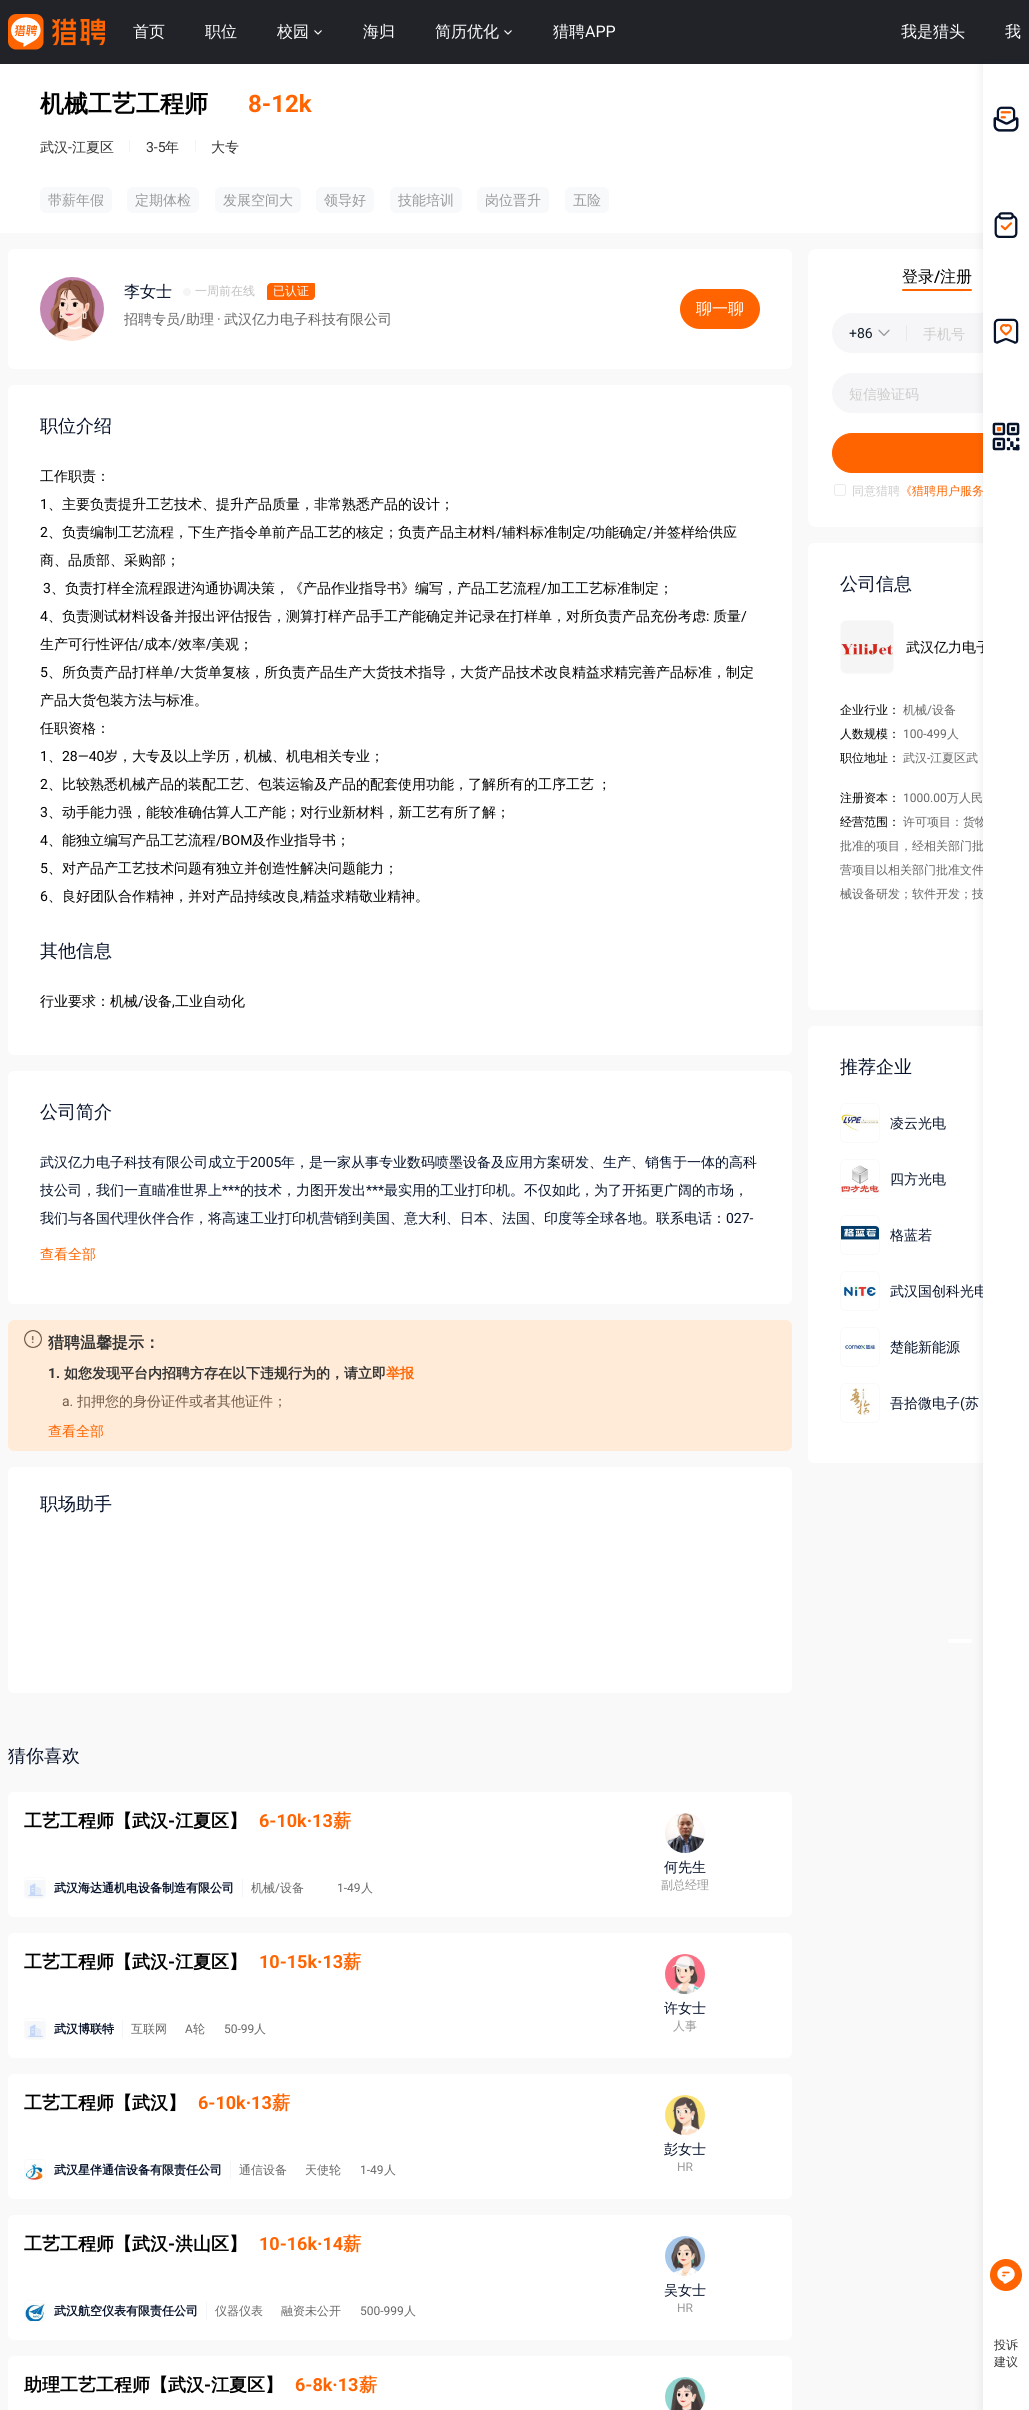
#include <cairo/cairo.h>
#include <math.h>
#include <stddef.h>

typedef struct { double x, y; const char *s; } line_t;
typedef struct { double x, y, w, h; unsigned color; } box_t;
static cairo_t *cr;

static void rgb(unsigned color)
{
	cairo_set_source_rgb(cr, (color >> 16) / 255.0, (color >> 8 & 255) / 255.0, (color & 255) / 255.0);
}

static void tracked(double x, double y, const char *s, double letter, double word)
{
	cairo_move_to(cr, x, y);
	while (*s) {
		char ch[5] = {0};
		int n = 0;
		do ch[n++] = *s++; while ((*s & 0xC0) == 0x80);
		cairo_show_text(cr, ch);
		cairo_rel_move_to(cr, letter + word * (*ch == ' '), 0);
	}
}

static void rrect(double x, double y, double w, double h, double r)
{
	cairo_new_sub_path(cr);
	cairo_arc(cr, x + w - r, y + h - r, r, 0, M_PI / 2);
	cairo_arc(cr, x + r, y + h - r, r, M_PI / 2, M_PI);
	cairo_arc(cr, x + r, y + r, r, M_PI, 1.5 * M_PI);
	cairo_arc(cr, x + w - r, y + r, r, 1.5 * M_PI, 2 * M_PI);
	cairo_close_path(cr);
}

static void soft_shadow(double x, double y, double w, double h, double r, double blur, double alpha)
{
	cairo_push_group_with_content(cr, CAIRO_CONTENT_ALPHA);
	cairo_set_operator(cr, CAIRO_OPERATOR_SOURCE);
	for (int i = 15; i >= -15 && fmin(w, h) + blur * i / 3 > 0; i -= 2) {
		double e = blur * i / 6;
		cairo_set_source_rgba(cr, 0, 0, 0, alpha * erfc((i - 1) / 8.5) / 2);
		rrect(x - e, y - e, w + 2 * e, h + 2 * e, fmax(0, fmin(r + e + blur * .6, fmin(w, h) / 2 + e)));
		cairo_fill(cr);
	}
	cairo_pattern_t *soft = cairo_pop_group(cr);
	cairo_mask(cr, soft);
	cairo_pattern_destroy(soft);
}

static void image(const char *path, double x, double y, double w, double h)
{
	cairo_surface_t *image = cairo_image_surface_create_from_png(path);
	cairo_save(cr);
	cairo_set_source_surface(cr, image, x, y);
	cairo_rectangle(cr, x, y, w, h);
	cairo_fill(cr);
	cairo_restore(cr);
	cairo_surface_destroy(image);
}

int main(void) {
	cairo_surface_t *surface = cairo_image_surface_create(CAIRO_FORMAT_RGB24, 1029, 2410);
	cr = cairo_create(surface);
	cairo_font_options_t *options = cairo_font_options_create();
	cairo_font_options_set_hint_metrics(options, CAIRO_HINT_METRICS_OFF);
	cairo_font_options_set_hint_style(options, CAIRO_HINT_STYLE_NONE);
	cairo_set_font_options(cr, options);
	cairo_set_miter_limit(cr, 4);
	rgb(0xfaf9f9);
	cairo_paint(cr);
	rgb(0x212329);
	cairo_rectangle(cr, 0, 0, 1029, 64);
	cairo_fill(cr);
	image("img/1.png", 8, 14, 97, 36);
	image("img/2.png", 314, 30, 8, 5);
	image("img/2.png", 504, 30, 8, 5);
	{
		static const box_t items[] = {
			{0, 64, 983, 115, 0xffffff},
			{129, 140, 1, 12, 0xf0f3f7},
			{195, 140, 1, 12, 0xf0f3f7},
			{0, 179, 983, 54, 0xffffff},
		};
		for (size_t i = 0; i < sizeof items / sizeof *items; i++) {
			rgb(items[i].color);
			cairo_rectangle(cr, items[i].x, items[i].y, items[i].w, items[i].h);
			cairo_fill(cr);
		}
	}
	rgb(0xf8f9fb);
	rrect(40, 187, 72, 26, 6);
	cairo_fill(cr);
	rrect(127, 187, 72, 26, 6);
	cairo_fill(cr);
	rrect(215, 187, 86, 26, 6);
	cairo_fill(cr);
	rrect(316, 187, 58, 26, 6);
	cairo_fill(cr);
	rrect(390, 187, 72, 26, 6);
	cairo_fill(cr);
	rrect(477, 187, 72, 26, 6);
	cairo_fill(cr);
	rrect(565, 187, 44, 26, 6);
	cairo_fill(cr);
	rgb(0xffffff);
	rrect(8, 249, 784, 120, 6);
	cairo_fill(cr);
	image("img/3.png", 40, 277, 64, 64);
	rgb(0xf5f5f5);
	cairo_arc(cr, 187, 292, 4, 0, 2 * M_PI);
	cairo_fill(cr);
	rgb(0xff6400);
	cairo_new_path(cr);
	cairo_move_to(cr, 271, 283);
	cairo_line_to(cr, 314, 283);
	cairo_curve_to(cr, 314.5, 283, 315, 283.5, 315, 284);
	cairo_line_to(cr, 315, 296);
	cairo_curve_to(cr, 315, 298, 313, 300, 311, 300);
	cairo_line_to(cr, 268, 300);
	cairo_curve_to(cr, 267.5, 300, 267, 299.5, 267, 299);
	cairo_line_to(cr, 267, 287);
	cairo_curve_to(cr, 267, 285, 269, 283, 271, 283);
	cairo_close_path(cr);
	cairo_fill(cr);
	rrect(680, 289, 80, 40, 20);
	cairo_fill(cr);
	rgb(0xffffff);
	rrect(8, 385, 784, 670, 6);
	cairo_fill(cr);
	rrect(8, 1071, 784, 233, 6);
	cairo_fill(cr);
	rgb(0xffebd7);
	rrect(8, 1320, 784, 131, 6);
	cairo_fill(cr);
	image("img/4.png", 24, 1330, 18, 18);
	rgb(0xffffff);
	rrect(8, 1467, 784, 226, 6);
	cairo_fill(cr);
	rrect(8, 1792, 784, 125, 6);
	cairo_fill(cr);
	rrect(24.5, 1877.5, 21, 21, 3.5);
	rgb(0xfafafa);
	cairo_set_line_width(cr, 1);
	cairo_stroke(cr);
	image("img/5.png", 25, 1880, 20, 18);
	rgb(0xf3f5f8);
	cairo_rectangle(cr, 242, 1879, 1, 18);
	cairo_fill(cr);
	image("img/6.png", 665, 1813, 40, 40);
	rgb(0xffffff);
	rrect(8, 1933, 784, 125, 6);
	cairo_fill(cr);
	rrect(24.5, 2018.5, 21, 21, 3.5);
	rgb(0xfafafa);
	cairo_stroke(cr);
	image("img/5.png", 25, 2021, 20, 18);
	rgb(0xf3f5f8);
	cairo_rectangle(cr, 122, 2020, 1, 18);
	cairo_fill(cr);
	image("img/7.png", 665, 1954, 40, 40);
	rgb(0xffffff);
	rrect(8, 2074, 784, 125, 6);
	cairo_fill(cr);
	rrect(24.5, 2159.5, 21, 21, 3.5);
	rgb(0xfafafa);
	cairo_stroke(cr);
	image("img/8.png", 25, 2162, 20, 18);
	rgb(0xf3f5f8);
	cairo_rectangle(cr, 230, 2161, 1, 18);
	cairo_fill(cr);
	image("img/9.png", 665, 2095, 40, 40);
	rgb(0xffffff);
	rrect(8, 2215, 784, 125, 6);
	cairo_fill(cr);
	rrect(24.5, 2300.5, 21, 21, 3.5);
	rgb(0xfafafa);
	cairo_stroke(cr);
	image("img/10.png", 25, 2303, 20, 18);
	rgb(0xf3f5f8);
	cairo_rectangle(cr, 206, 2302, 1, 18);
	cairo_fill(cr);
	image("img/11.png", 665, 2236, 40, 40);
	rgb(0xffffff);
	rrect(8, 2356, 784, 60, 6);
	cairo_fill(cr);
	image("img/12.png", 665, 2377, 40, 33);
	rrect(808, 249, 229, 278, 8);
	cairo_fill(cr);
	rgb(0xff6400);
	rrect(902, 289, 70, 2, 1);
	cairo_fill(cr);
	rgb(0xf6f6f8);
	rrect(832, 313, 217, 40, 20);
	cairo_fill(cr);
	image("img/13.png", 878, 329, 12, 7);
	rgb(0xe9e9eb);
	cairo_rectangle(cr, 906, 325, 1, 16);
	cairo_fill(cr);
	rgb(0xf6f6f8);
	rrect(832, 373, 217, 40, 20);
	cairo_fill(cr);
	rgb(0xff6400);
	rrect(832.5, 433.5, 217, 39, 19.5);
	cairo_fill_preserve(cr);
	cairo_stroke(cr);
	rrect(834.4, 484.4, 11.2, 11.2, 2.6);
	rgb(0xe6e6e6);
	cairo_set_line_width(cr, 0.8);
	cairo_stroke(cr);
	rgb(0xffffff);
	rrect(808, 543, 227, 467, 6);
	cairo_fill(cr);
	rrect(840.5, 620.5, 53, 53, 5.5);
	rgb(0xfafafa);
	cairo_set_line_width(cr, 1);
	cairo_stroke(cr);
	image("img/14.png", 841, 621, 52, 52);
	rgb(0xffffff);
	rrect(808, 1026, 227, 437, 6);
	cairo_fill(cr);
	rrect(840.5, 1103.5, 39, 39, 5.5);
	rgb(0xfafafa);
	cairo_stroke(cr);
	image("img/15.png", 841, 1113, 38, 18);
	rrect(840.5, 1159.5, 39, 39, 5.5);
	cairo_stroke(cr);
	image("img/16.png", 841, 1165, 38, 30);
	rrect(840.5, 1215.5, 39, 39, 5.5);
	cairo_stroke(cr);
	image("img/17.png", 841, 1225, 38, 15);
	rrect(840.5, 1271.5, 39, 39, 5.5);
	cairo_stroke(cr);
	image("img/18.png", 841, 1285, 36, 14);
	rrect(840.5, 1327.5, 39, 39, 5.5);
	cairo_stroke(cr);
	image("img/19.png", 845, 1341, 31, 9);
	rrect(840.5, 1383.5, 39, 39, 5.5);
	cairo_stroke(cr);
	image("img/20.png", 850, 1388, 22, 27);
	rgb(0xffffff);
	rrect(948, 1639, 24, 4, 2);
	cairo_fill(cr);
	rgb(0x07132b);
	soft_shadow(983, 64, 46, 2346, 0, 5, 0.1);
	cairo_select_font_face(cr, "WenQuanYi Zen Hei Medium", CAIRO_FONT_SLANT_NORMAL, CAIRO_FONT_WEIGHT_NORMAL);
	cairo_set_font_size(cr, 16);
	rgb(0xffffff);
	{
		static const line_t items[] = {
			{133, 37, "首页"},
			{205, 37, "职位"},
			{277, 37, "校园"},
			{363, 37, "海归"},
			{435, 37, "简历优化"},
			{553, 37, "猎聘"},
		};
		for (size_t i = 0; i < sizeof items / sizeof *items; i++) {
			cairo_move_to(cr, items[i].x, items[i].y);
			cairo_show_text(cr, items[i].s);
		}
	}
	cairo_select_font_face(cr, "Roboto", CAIRO_FONT_SLANT_NORMAL, CAIRO_FONT_WEIGHT_NORMAL);
	cairo_move_to(cr, 585, 37);
	cairo_show_text(cr, "APP");
	cairo_select_font_face(cr, "WenQuanYi Zen Hei Medium", CAIRO_FONT_SLANT_NORMAL, CAIRO_FONT_WEIGHT_NORMAL);
	cairo_move_to(cr, 901, 37);
	cairo_show_text(cr, "我是猎头");
	cairo_move_to(cr, 1005, 37);
	cairo_show_text(cr, "我");
	cairo_select_font_face(cr, "WenQuanYi Zen Hei", CAIRO_FONT_SLANT_NORMAL, CAIRO_FONT_WEIGHT_BOLD);
	cairo_set_font_size(cr, 24);
	rgb(0x000000);
	cairo_move_to(cr, 40, 112);
	cairo_show_text(cr, "机械工艺工程师");
	cairo_select_font_face(cr, "Roboto", CAIRO_FONT_SLANT_NORMAL, CAIRO_FONT_WEIGHT_BOLD);
	rgb(0xff6400);
	cairo_move_to(cr, 248, 112);
	cairo_show_text(cr, "8-12k");
	cairo_select_font_face(cr, "WenQuanYi Zen Hei Medium", CAIRO_FONT_SLANT_NORMAL, CAIRO_FONT_WEIGHT_NORMAL);
	cairo_set_font_size(cr, 14);
	rgb(0x333333);
	cairo_move_to(cr, 40, 152);
	cairo_show_text(cr, "武汉");
	cairo_select_font_face(cr, "Roboto", CAIRO_FONT_SLANT_NORMAL, CAIRO_FONT_WEIGHT_NORMAL);
	cairo_move_to(cr, 68, 152);
	cairo_show_text(cr, "-");
	cairo_select_font_face(cr, "WenQuanYi Zen Hei Medium", CAIRO_FONT_SLANT_NORMAL, CAIRO_FONT_WEIGHT_NORMAL);
	cairo_move_to(cr, 72, 152);
	cairo_show_text(cr, "江夏区");
	cairo_select_font_face(cr, "Roboto", CAIRO_FONT_SLANT_NORMAL, CAIRO_FONT_WEIGHT_NORMAL);
	cairo_move_to(cr, 146, 152);
	cairo_show_text(cr, "3-5");
	cairo_select_font_face(cr, "WenQuanYi Zen Hei Medium", CAIRO_FONT_SLANT_NORMAL, CAIRO_FONT_WEIGHT_NORMAL);
	cairo_move_to(cr, 165, 152);
	cairo_show_text(cr, "年");
	cairo_move_to(cr, 211, 152);
	cairo_show_text(cr, "大专");
	rgb(0x999999);
	{
		static const line_t items[] = {
			{48, 205, "带薪年假"},
			{135, 205, "定期体检"},
			{223, 205, "发展空间大"},
			{324, 205, "领导好"},
			{398, 205, "技能培训"},
			{485, 205, "岗位晋升"},
			{573, 205, "五险"},
		};
		for (size_t i = 0; i < sizeof items / sizeof *items; i++) {
			cairo_move_to(cr, items[i].x, items[i].y);
			cairo_show_text(cr, items[i].s);
		}
	}
	cairo_set_font_size(cr, 16);
	rgb(0x07132b);
	cairo_move_to(cr, 124, 297);
	cairo_show_text(cr, "李女士");
	cairo_set_font_size(cr, 12);
	rgb(0xbfbfbf);
	cairo_move_to(cr, 195, 295);
	cairo_show_text(cr, "一周前在线");
	rgb(0xffffff);
	cairo_move_to(cr, 273, 295);
	cairo_show_text(cr, "已认证");
	cairo_set_font_size(cr, 14);
	rgb(0x666666);
	cairo_move_to(cr, 124, 324);
	cairo_show_text(cr, "招聘专员");
	cairo_select_font_face(cr, "Roboto", CAIRO_FONT_SLANT_NORMAL, CAIRO_FONT_WEIGHT_NORMAL);
	cairo_move_to(cr, 180, 324);
	cairo_show_text(cr, "/");
	cairo_select_font_face(cr, "WenQuanYi Zen Hei Medium", CAIRO_FONT_SLANT_NORMAL, CAIRO_FONT_WEIGHT_NORMAL);
	cairo_move_to(cr, 186, 324);
	cairo_show_text(cr, "助理");
	cairo_select_font_face(cr, "Roboto", CAIRO_FONT_SLANT_NORMAL, CAIRO_FONT_WEIGHT_NORMAL);
	cairo_move_to(cr, 217, 324);
	cairo_show_text(cr, "·");
	cairo_select_font_face(cr, "WenQuanYi Zen Hei Medium", CAIRO_FONT_SLANT_NORMAL, CAIRO_FONT_WEIGHT_NORMAL);
	cairo_move_to(cr, 224, 324);
	cairo_show_text(cr, "武汉亿力电子科技有限公司");
	cairo_set_font_size(cr, 16);
	rgb(0xffffff);
	cairo_move_to(cr, 696, 314);
	cairo_show_text(cr, "聊一聊");
	cairo_set_font_size(cr, 18);
	rgb(0x07132b);
	cairo_move_to(cr, 40, 432);
	cairo_show_text(cr, "职位介绍");
	cairo_set_font_size(cr, 14);
	rgb(0x000000);
	cairo_move_to(cr, 40, 481);
	cairo_show_text(cr, "工作职责：");
	cairo_select_font_face(cr, "Roboto", CAIRO_FONT_SLANT_NORMAL, CAIRO_FONT_WEIGHT_NORMAL);
	cairo_move_to(cr, 40, 509);
	cairo_show_text(cr, "1");
	cairo_select_font_face(cr, "WenQuanYi Zen Hei Medium", CAIRO_FONT_SLANT_NORMAL, CAIRO_FONT_WEIGHT_NORMAL);
	cairo_move_to(cr, 48, 509);
	cairo_show_text(cr, "、主要负责提升工艺技术、提升产品质量，非常熟悉产品的设计；");
	cairo_select_font_face(cr, "Roboto", CAIRO_FONT_SLANT_NORMAL, CAIRO_FONT_WEIGHT_NORMAL);
	cairo_move_to(cr, 40, 537);
	cairo_show_text(cr, "2");
	cairo_select_font_face(cr, "WenQuanYi Zen Hei Medium", CAIRO_FONT_SLANT_NORMAL, CAIRO_FONT_WEIGHT_NORMAL);
	cairo_move_to(cr, 48, 537);
	cairo_show_text(cr, "、负责编制工艺流程，下生产指令单前产品工艺的核定；负责产品主材料");
	cairo_select_font_face(cr, "Roboto", CAIRO_FONT_SLANT_NORMAL, CAIRO_FONT_WEIGHT_NORMAL);
	cairo_move_to(cr, 496, 537);
	cairo_show_text(cr, "/");
	cairo_select_font_face(cr, "WenQuanYi Zen Hei Medium", CAIRO_FONT_SLANT_NORMAL, CAIRO_FONT_WEIGHT_NORMAL);
	cairo_move_to(cr, 502, 537);
	cairo_show_text(cr, "辅料标准制定");
	cairo_select_font_face(cr, "Roboto", CAIRO_FONT_SLANT_NORMAL, CAIRO_FONT_WEIGHT_NORMAL);
	cairo_move_to(cr, 586, 537);
	cairo_show_text(cr, "/");
	cairo_select_font_face(cr, "WenQuanYi Zen Hei Medium", CAIRO_FONT_SLANT_NORMAL, CAIRO_FONT_WEIGHT_NORMAL);
	cairo_move_to(cr, 591, 537);
	cairo_show_text(cr, "功能确定");
	cairo_select_font_face(cr, "Roboto", CAIRO_FONT_SLANT_NORMAL, CAIRO_FONT_WEIGHT_NORMAL);
	cairo_move_to(cr, 647, 537);
	cairo_show_text(cr, "/");
	cairo_select_font_face(cr, "WenQuanYi Zen Hei Medium", CAIRO_FONT_SLANT_NORMAL, CAIRO_FONT_WEIGHT_NORMAL);
	cairo_move_to(cr, 653, 537);
	cairo_show_text(cr, "并签样给供应");
	cairo_move_to(cr, 40, 565);
	cairo_show_text(cr, "商、品质部、采购部；");
	cairo_select_font_face(cr, "Roboto", CAIRO_FONT_SLANT_NORMAL, CAIRO_FONT_WEIGHT_NORMAL);
	cairo_move_to(cr, 43, 593);
	cairo_show_text(cr, "3");
	cairo_select_font_face(cr, "WenQuanYi Zen Hei Medium", CAIRO_FONT_SLANT_NORMAL, CAIRO_FONT_WEIGHT_NORMAL);
	cairo_move_to(cr, 51, 593);
	cairo_show_text(cr, "、负责打样全流程跟进沟通协调决策，《产品作业指导书》编写，产品工艺流程");
	cairo_select_font_face(cr, "Roboto", CAIRO_FONT_SLANT_NORMAL, CAIRO_FONT_WEIGHT_NORMAL);
	cairo_move_to(cr, 541, 593);
	cairo_show_text(cr, "/");
	cairo_select_font_face(cr, "WenQuanYi Zen Hei Medium", CAIRO_FONT_SLANT_NORMAL, CAIRO_FONT_WEIGHT_NORMAL);
	cairo_move_to(cr, 547, 593);
	cairo_show_text(cr, "加工工艺标准制定；");
	cairo_select_font_face(cr, "Roboto", CAIRO_FONT_SLANT_NORMAL, CAIRO_FONT_WEIGHT_NORMAL);
	cairo_move_to(cr, 40, 621);
	cairo_show_text(cr, "4");
	cairo_select_font_face(cr, "WenQuanYi Zen Hei Medium", CAIRO_FONT_SLANT_NORMAL, CAIRO_FONT_WEIGHT_NORMAL);
	cairo_move_to(cr, 48, 621);
	cairo_show_text(cr, "、负责测试材料设备并报出评估报告，测算打样产品手工产能确定并记录在打样单，对所负责产品充份考虑");
	cairo_select_font_face(cr, "Roboto", CAIRO_FONT_SLANT_NORMAL, CAIRO_FONT_WEIGHT_NORMAL);
	cairo_move_to(cr, 706, 621);
	cairo_show_text(cr, ":");
	cairo_select_font_face(cr, "WenQuanYi Zen Hei Medium", CAIRO_FONT_SLANT_NORMAL, CAIRO_FONT_WEIGHT_NORMAL);
	cairo_move_to(cr, 713, 621);
	cairo_show_text(cr, "质量");
	cairo_select_font_face(cr, "Roboto", CAIRO_FONT_SLANT_NORMAL, CAIRO_FONT_WEIGHT_NORMAL);
	cairo_move_to(cr, 741, 621);
	cairo_show_text(cr, "/");
	cairo_select_font_face(cr, "WenQuanYi Zen Hei Medium", CAIRO_FONT_SLANT_NORMAL, CAIRO_FONT_WEIGHT_NORMAL);
	cairo_move_to(cr, 40, 649);
	cairo_show_text(cr, "生产可行性评估");
	cairo_select_font_face(cr, "Roboto", CAIRO_FONT_SLANT_NORMAL, CAIRO_FONT_WEIGHT_NORMAL);
	cairo_move_to(cr, 138, 649);
	cairo_show_text(cr, "/");
	cairo_select_font_face(cr, "WenQuanYi Zen Hei Medium", CAIRO_FONT_SLANT_NORMAL, CAIRO_FONT_WEIGHT_NORMAL);
	cairo_move_to(cr, 144, 649);
	cairo_show_text(cr, "成本");
	cairo_select_font_face(cr, "Roboto", CAIRO_FONT_SLANT_NORMAL, CAIRO_FONT_WEIGHT_NORMAL);
	cairo_move_to(cr, 172, 649);
	cairo_show_text(cr, "/");
	cairo_select_font_face(cr, "WenQuanYi Zen Hei Medium", CAIRO_FONT_SLANT_NORMAL, CAIRO_FONT_WEIGHT_NORMAL);
	cairo_move_to(cr, 178, 649);
	cairo_show_text(cr, "效率");
	cairo_select_font_face(cr, "Roboto", CAIRO_FONT_SLANT_NORMAL, CAIRO_FONT_WEIGHT_NORMAL);
	cairo_move_to(cr, 206, 649);
	cairo_show_text(cr, "/");
	cairo_select_font_face(cr, "WenQuanYi Zen Hei Medium", CAIRO_FONT_SLANT_NORMAL, CAIRO_FONT_WEIGHT_NORMAL);
	cairo_move_to(cr, 211, 649);
	cairo_show_text(cr, "美观；");
	cairo_select_font_face(cr, "Roboto", CAIRO_FONT_SLANT_NORMAL, CAIRO_FONT_WEIGHT_NORMAL);
	cairo_move_to(cr, 40, 677);
	cairo_show_text(cr, "5");
	cairo_select_font_face(cr, "WenQuanYi Zen Hei Medium", CAIRO_FONT_SLANT_NORMAL, CAIRO_FONT_WEIGHT_NORMAL);
	cairo_move_to(cr, 48, 677);
	cairo_show_text(cr, "、所负责产品打样单");
	cairo_select_font_face(cr, "Roboto", CAIRO_FONT_SLANT_NORMAL, CAIRO_FONT_WEIGHT_NORMAL);
	cairo_move_to(cr, 174, 677);
	cairo_show_text(cr, "/");
	cairo_select_font_face(cr, "WenQuanYi Zen Hei Medium", CAIRO_FONT_SLANT_NORMAL, CAIRO_FONT_WEIGHT_NORMAL);
	{
		static const line_t items[] = {
			{180, 677, "大货单复核，所负责产品生产大货技术指导，大货产品技术改良精益求精完善产品标准，制定"},
			{40, 705, "产品大货包装方法与标准。"},
			{40, 733, "任职资格："},
		};
		for (size_t i = 0; i < sizeof items / sizeof *items; i++) {
			cairo_move_to(cr, items[i].x, items[i].y);
			cairo_show_text(cr, items[i].s);
		}
	}
	cairo_select_font_face(cr, "Roboto", CAIRO_FONT_SLANT_NORMAL, CAIRO_FONT_WEIGHT_NORMAL);
	cairo_move_to(cr, 40, 761);
	cairo_show_text(cr, "1");
	cairo_select_font_face(cr, "WenQuanYi Zen Hei Medium", CAIRO_FONT_SLANT_NORMAL, CAIRO_FONT_WEIGHT_NORMAL);
	cairo_move_to(cr, 48, 761);
	cairo_show_text(cr, "、");
	cairo_select_font_face(cr, "Roboto", CAIRO_FONT_SLANT_NORMAL, CAIRO_FONT_WEIGHT_NORMAL);
	cairo_move_to(cr, 62, 761);
	cairo_show_text(cr, "28—40");
	cairo_select_font_face(cr, "WenQuanYi Zen Hei Medium", CAIRO_FONT_SLANT_NORMAL, CAIRO_FONT_WEIGHT_NORMAL);
	cairo_move_to(cr, 104, 761);
	cairo_show_text(cr, "岁，大专及以上学历，机械、机电相关专业；");
	cairo_select_font_face(cr, "Roboto", CAIRO_FONT_SLANT_NORMAL, CAIRO_FONT_WEIGHT_NORMAL);
	cairo_move_to(cr, 40, 789);
	cairo_show_text(cr, "2");
	cairo_select_font_face(cr, "WenQuanYi Zen Hei Medium", CAIRO_FONT_SLANT_NORMAL, CAIRO_FONT_WEIGHT_NORMAL);
	tracked(48, 789, "、比较熟悉机械产品的装配工艺、包装运输及产品的配套使用功能，了解所有的工序工艺 ；", 0, -1);
	cairo_select_font_face(cr, "Roboto", CAIRO_FONT_SLANT_NORMAL, CAIRO_FONT_WEIGHT_NORMAL);
	cairo_move_to(cr, 40, 817);
	cairo_show_text(cr, "3");
	cairo_select_font_face(cr, "WenQuanYi Zen Hei Medium", CAIRO_FONT_SLANT_NORMAL, CAIRO_FONT_WEIGHT_NORMAL);
	cairo_move_to(cr, 48, 817);
	cairo_show_text(cr, "、动手能力强，能较准确估算人工产能；对行业新材料，新工艺有所了解；");
	cairo_select_font_face(cr, "Roboto", CAIRO_FONT_SLANT_NORMAL, CAIRO_FONT_WEIGHT_NORMAL);
	cairo_move_to(cr, 40, 845);
	cairo_show_text(cr, "4");
	cairo_select_font_face(cr, "WenQuanYi Zen Hei Medium", CAIRO_FONT_SLANT_NORMAL, CAIRO_FONT_WEIGHT_NORMAL);
	cairo_move_to(cr, 48, 845);
	cairo_show_text(cr, "、能独立编写产品工艺流程");
	cairo_select_font_face(cr, "Roboto", CAIRO_FONT_SLANT_NORMAL, CAIRO_FONT_WEIGHT_NORMAL);
	cairo_move_to(cr, 216, 845);
	cairo_show_text(cr, "/BOM");
	cairo_select_font_face(cr, "WenQuanYi Zen Hei Medium", CAIRO_FONT_SLANT_NORMAL, CAIRO_FONT_WEIGHT_NORMAL);
	cairo_move_to(cr, 252, 845);
	cairo_show_text(cr, "及作业指导书；");
	cairo_select_font_face(cr, "Roboto", CAIRO_FONT_SLANT_NORMAL, CAIRO_FONT_WEIGHT_NORMAL);
	cairo_move_to(cr, 40, 873);
	cairo_show_text(cr, "5");
	cairo_select_font_face(cr, "WenQuanYi Zen Hei Medium", CAIRO_FONT_SLANT_NORMAL, CAIRO_FONT_WEIGHT_NORMAL);
	cairo_move_to(cr, 48, 873);
	cairo_show_text(cr, "、对产品产工艺技术问题有独立并创造性解决问题能力；");
	cairo_select_font_face(cr, "Roboto", CAIRO_FONT_SLANT_NORMAL, CAIRO_FONT_WEIGHT_NORMAL);
	cairo_move_to(cr, 40, 901);
	cairo_show_text(cr, "6");
	cairo_select_font_face(cr, "WenQuanYi Zen Hei Medium", CAIRO_FONT_SLANT_NORMAL, CAIRO_FONT_WEIGHT_NORMAL);
	cairo_move_to(cr, 48, 901);
	cairo_show_text(cr, "、良好团队合作精神，并对产品持续改良");
	cairo_select_font_face(cr, "Roboto", CAIRO_FONT_SLANT_NORMAL, CAIRO_FONT_WEIGHT_NORMAL);
	cairo_move_to(cr, 300, 901);
	cairo_show_text(cr, ",");
	cairo_select_font_face(cr, "WenQuanYi Zen Hei Medium", CAIRO_FONT_SLANT_NORMAL, CAIRO_FONT_WEIGHT_NORMAL);
	cairo_move_to(cr, 303, 901);
	cairo_show_text(cr, "精益求精敬业精神。");
	cairo_set_font_size(cr, 18);
	rgb(0x07132b);
	cairo_move_to(cr, 40, 957);
	cairo_show_text(cr, "其他信息");
	cairo_set_font_size(cr, 14);
	rgb(0x000000);
	cairo_move_to(cr, 40, 1006);
	cairo_show_text(cr, "行业要求：机械");
	cairo_select_font_face(cr, "Roboto", CAIRO_FONT_SLANT_NORMAL, CAIRO_FONT_WEIGHT_NORMAL);
	cairo_move_to(cr, 138, 1006);
	cairo_show_text(cr, "/");
	cairo_select_font_face(cr, "WenQuanYi Zen Hei Medium", CAIRO_FONT_SLANT_NORMAL, CAIRO_FONT_WEIGHT_NORMAL);
	cairo_move_to(cr, 144, 1006);
	cairo_show_text(cr, "设备");
	cairo_select_font_face(cr, "Roboto", CAIRO_FONT_SLANT_NORMAL, CAIRO_FONT_WEIGHT_NORMAL);
	cairo_move_to(cr, 172, 1006);
	cairo_show_text(cr, ",");
	cairo_select_font_face(cr, "WenQuanYi Zen Hei Medium", CAIRO_FONT_SLANT_NORMAL, CAIRO_FONT_WEIGHT_NORMAL);
	cairo_move_to(cr, 175, 1006);
	cairo_show_text(cr, "工业自动化");
	cairo_set_font_size(cr, 18);
	rgb(0x07132b);
	cairo_move_to(cr, 40, 1118);
	cairo_show_text(cr, "公司简介");
	cairo_set_font_size(cr, 14);
	cairo_move_to(cr, 40, 1167);
	cairo_show_text(cr, "武汉亿力电子科技有限公司成立于");
	cairo_select_font_face(cr, "Roboto", CAIRO_FONT_SLANT_NORMAL, CAIRO_FONT_WEIGHT_NORMAL);
	cairo_move_to(cr, 250, 1167);
	cairo_show_text(cr, "2005");
	cairo_select_font_face(cr, "WenQuanYi Zen Hei Medium", CAIRO_FONT_SLANT_NORMAL, CAIRO_FONT_WEIGHT_NORMAL);
	cairo_move_to(cr, 281, 1167);
	cairo_show_text(cr, "年，是一家从事专业数码喷墨设备及应用方案研发、生产、销售于一体的高科");
	cairo_move_to(cr, 40, 1195);
	cairo_show_text(cr, "技公司，我们一直瞄准世界上");
	cairo_select_font_face(cr, "Roboto", CAIRO_FONT_SLANT_NORMAL, CAIRO_FONT_WEIGHT_NORMAL);
	cairo_move_to(cr, 222, 1195);
	cairo_show_text(cr, "***");
	cairo_select_font_face(cr, "WenQuanYi Zen Hei Medium", CAIRO_FONT_SLANT_NORMAL, CAIRO_FONT_WEIGHT_NORMAL);
	cairo_move_to(cr, 240, 1195);
	cairo_show_text(cr, "的技术，力图开发出");
	cairo_select_font_face(cr, "Roboto", CAIRO_FONT_SLANT_NORMAL, CAIRO_FONT_WEIGHT_NORMAL);
	cairo_move_to(cr, 366, 1195);
	cairo_show_text(cr, "***");
	cairo_select_font_face(cr, "WenQuanYi Zen Hei Medium", CAIRO_FONT_SLANT_NORMAL, CAIRO_FONT_WEIGHT_NORMAL);
	cairo_move_to(cr, 384, 1195);
	cairo_show_text(cr, "最实用的工业打印机。不仅如此，为了开拓更广阔的市场，");
	cairo_move_to(cr, 40, 1223);
	cairo_show_text(cr, "我们与各国代理伙伴合作，将高速工业打印机营销到美国、意大利、日本、法国、印度等全球各地。联系电话：");
	cairo_select_font_face(cr, "Roboto", CAIRO_FONT_SLANT_NORMAL, CAIRO_FONT_WEIGHT_NORMAL);
	cairo_move_to(cr, 726, 1223);
	cairo_show_text(cr, "027-");
	cairo_select_font_face(cr, "WenQuanYi Zen Hei Medium", CAIRO_FONT_SLANT_NORMAL, CAIRO_FONT_WEIGHT_NORMAL);
	rgb(0xff6400);
	cairo_move_to(cr, 40, 1259);
	cairo_show_text(cr, "查看全部");
	cairo_select_font_face(cr, "WenQuanYi Zen Hei", CAIRO_FONT_SLANT_NORMAL, CAIRO_FONT_WEIGHT_BOLD);
	cairo_set_font_size(cr, 16);
	rgb(0x333333);
	cairo_move_to(cr, 48, 1348);
	cairo_show_text(cr, "猎聘温馨提示：");
	cairo_select_font_face(cr, "Roboto", CAIRO_FONT_SLANT_NORMAL, CAIRO_FONT_WEIGHT_BOLD);
	cairo_set_font_size(cr, 14);
	cairo_move_to(cr, 48, 1378);
	cairo_show_text(cr, "1.");
	cairo_select_font_face(cr, "WenQuanYi Zen Hei", CAIRO_FONT_SLANT_NORMAL, CAIRO_FONT_WEIGHT_BOLD);
	cairo_move_to(cr, 64, 1378);
	cairo_show_text(cr, "如您发现平台内招聘方存在以下违规行为的，请立即");
	rgb(0xff6400);
	cairo_move_to(cr, 386, 1378);
	cairo_show_text(cr, "举报");
	cairo_select_font_face(cr, "Roboto", CAIRO_FONT_SLANT_NORMAL, CAIRO_FONT_WEIGHT_NORMAL);
	rgb(0x715a4a);
	cairo_move_to(cr, 62, 1406);
	cairo_show_text(cr, "a.");
	cairo_select_font_face(cr, "WenQuanYi Zen Hei Medium", CAIRO_FONT_SLANT_NORMAL, CAIRO_FONT_WEIGHT_NORMAL);
	cairo_move_to(cr, 77, 1406);
	cairo_show_text(cr, "扣押您的身份证件或者其他证件；");
	rgb(0xff6400);
	cairo_move_to(cr, 48, 1436);
	cairo_show_text(cr, "查看全部");
	cairo_set_font_size(cr, 18);
	rgb(0x07132b);
	cairo_move_to(cr, 40, 1510);
	cairo_show_text(cr, "职场助手");
	cairo_move_to(cr, 8, 1762);
	cairo_show_text(cr, "猜你喜欢");
	cairo_select_font_face(cr, "WenQuanYi Zen Hei", CAIRO_FONT_SLANT_NORMAL, CAIRO_FONT_WEIGHT_BOLD);
	rgb(0x000000);
	cairo_move_to(cr, 24, 1827);
	cairo_show_text(cr, "工艺工程师");
	cairo_move_to(cr, 114, 1827);
	cairo_show_text(cr, "【武汉");
	cairo_select_font_face(cr, "Roboto", CAIRO_FONT_SLANT_NORMAL, CAIRO_FONT_WEIGHT_BOLD);
	cairo_move_to(cr, 168, 1827);
	cairo_show_text(cr, "-");
	cairo_select_font_face(cr, "WenQuanYi Zen Hei", CAIRO_FONT_SLANT_NORMAL, CAIRO_FONT_WEIGHT_BOLD);
	cairo_move_to(cr, 175, 1827);
	cairo_show_text(cr, "江夏区");
	cairo_move_to(cr, 229, 1827);
	cairo_show_text(cr, "】");
	cairo_select_font_face(cr, "Roboto", CAIRO_FONT_SLANT_NORMAL, CAIRO_FONT_WEIGHT_BOLD);
	rgb(0xff6400);
	cairo_move_to(cr, 259, 1827);
	cairo_show_text(cr, "6-10k·13");
	cairo_select_font_face(cr, "WenQuanYi Zen Hei", CAIRO_FONT_SLANT_NORMAL, CAIRO_FONT_WEIGHT_BOLD);
	cairo_move_to(cr, 333, 1827);
	cairo_show_text(cr, "薪");
	cairo_set_font_size(cr, 12);
	rgb(0x07132b);
	cairo_move_to(cr, 54, 1892);
	cairo_show_text(cr, "武汉海达通机电设备制造有限公司");
	cairo_select_font_face(cr, "WenQuanYi Zen Hei Medium", CAIRO_FONT_SLANT_NORMAL, CAIRO_FONT_WEIGHT_NORMAL);
	rgb(0x666666);
	cairo_move_to(cr, 251, 1892);
	cairo_show_text(cr, "机械");
	cairo_select_font_face(cr, "Roboto", CAIRO_FONT_SLANT_NORMAL, CAIRO_FONT_WEIGHT_NORMAL);
	cairo_move_to(cr, 275, 1892);
	cairo_show_text(cr, "/");
	cairo_select_font_face(cr, "WenQuanYi Zen Hei Medium", CAIRO_FONT_SLANT_NORMAL, CAIRO_FONT_WEIGHT_NORMAL);
	cairo_move_to(cr, 280, 1892);
	cairo_show_text(cr, "设备");
	cairo_select_font_face(cr, "Roboto", CAIRO_FONT_SLANT_NORMAL, CAIRO_FONT_WEIGHT_NORMAL);
	cairo_move_to(cr, 337, 1892);
	cairo_show_text(cr, "1-49");
	cairo_select_font_face(cr, "WenQuanYi Zen Hei Medium", CAIRO_FONT_SLANT_NORMAL, CAIRO_FONT_WEIGHT_NORMAL);
	cairo_move_to(cr, 361, 1892);
	cairo_show_text(cr, "人");
	cairo_set_font_size(cr, 14);
	rgb(0x07132b);
	cairo_move_to(cr, 664, 1872);
	cairo_show_text(cr, "何先生");
	cairo_set_font_size(cr, 12);
	rgb(0x999999);
	cairo_move_to(cr, 661, 1889);
	cairo_show_text(cr, "副总经理");
	cairo_select_font_face(cr, "WenQuanYi Zen Hei", CAIRO_FONT_SLANT_NORMAL, CAIRO_FONT_WEIGHT_BOLD);
	cairo_set_font_size(cr, 18);
	rgb(0x000000);
	cairo_move_to(cr, 24, 1968);
	cairo_show_text(cr, "工艺工程师");
	cairo_move_to(cr, 114, 1968);
	cairo_show_text(cr, "【武汉");
	cairo_select_font_face(cr, "Roboto", CAIRO_FONT_SLANT_NORMAL, CAIRO_FONT_WEIGHT_BOLD);
	cairo_move_to(cr, 168, 1968);
	cairo_show_text(cr, "-");
	cairo_select_font_face(cr, "WenQuanYi Zen Hei", CAIRO_FONT_SLANT_NORMAL, CAIRO_FONT_WEIGHT_BOLD);
	cairo_move_to(cr, 175, 1968);
	cairo_show_text(cr, "江夏区");
	cairo_move_to(cr, 229, 1968);
	cairo_show_text(cr, "】");
	cairo_select_font_face(cr, "Roboto", CAIRO_FONT_SLANT_NORMAL, CAIRO_FONT_WEIGHT_BOLD);
	rgb(0xff6400);
	cairo_move_to(cr, 259, 1968);
	cairo_show_text(cr, "10-15k·13");
	cairo_select_font_face(cr, "WenQuanYi Zen Hei", CAIRO_FONT_SLANT_NORMAL, CAIRO_FONT_WEIGHT_BOLD);
	cairo_move_to(cr, 343, 1968);
	cairo_show_text(cr, "薪");
	cairo_set_font_size(cr, 12);
	rgb(0x07132b);
	cairo_move_to(cr, 54, 2033);
	cairo_show_text(cr, "武汉博联特");
	cairo_select_font_face(cr, "WenQuanYi Zen Hei Medium", CAIRO_FONT_SLANT_NORMAL, CAIRO_FONT_WEIGHT_NORMAL);
	rgb(0x666666);
	cairo_move_to(cr, 131, 2033);
	cairo_show_text(cr, "互联网");
	cairo_select_font_face(cr, "Roboto", CAIRO_FONT_SLANT_NORMAL, CAIRO_FONT_WEIGHT_NORMAL);
	cairo_move_to(cr, 185, 2033);
	cairo_show_text(cr, "A");
	cairo_select_font_face(cr, "WenQuanYi Zen Hei Medium", CAIRO_FONT_SLANT_NORMAL, CAIRO_FONT_WEIGHT_NORMAL);
	cairo_move_to(cr, 193, 2033);
	cairo_show_text(cr, "轮");
	cairo_select_font_face(cr, "Roboto", CAIRO_FONT_SLANT_NORMAL, CAIRO_FONT_WEIGHT_NORMAL);
	cairo_move_to(cr, 224, 2033);
	cairo_show_text(cr, "50-99");
	cairo_select_font_face(cr, "WenQuanYi Zen Hei Medium", CAIRO_FONT_SLANT_NORMAL, CAIRO_FONT_WEIGHT_NORMAL);
	cairo_move_to(cr, 254, 2033);
	cairo_show_text(cr, "人");
	cairo_set_font_size(cr, 14);
	rgb(0x07132b);
	cairo_move_to(cr, 664, 2013);
	cairo_show_text(cr, "许女士");
	cairo_set_font_size(cr, 12);
	rgb(0x999999);
	cairo_move_to(cr, 673, 2030);
	cairo_show_text(cr, "人事");
	cairo_select_font_face(cr, "WenQuanYi Zen Hei", CAIRO_FONT_SLANT_NORMAL, CAIRO_FONT_WEIGHT_BOLD);
	cairo_set_font_size(cr, 18);
	rgb(0x000000);
	{
		static const line_t items[] = {
			{24, 2109, "工艺工程师"},
			{114, 2109, "【武汉"},
			{168, 2109, "】"},
		};
		for (size_t i = 0; i < sizeof items / sizeof *items; i++) {
			cairo_move_to(cr, items[i].x, items[i].y);
			cairo_show_text(cr, items[i].s);
		}
	}
	cairo_select_font_face(cr, "Roboto", CAIRO_FONT_SLANT_NORMAL, CAIRO_FONT_WEIGHT_BOLD);
	rgb(0xff6400);
	cairo_move_to(cr, 198, 2109);
	cairo_show_text(cr, "6-10k·13");
	cairo_select_font_face(cr, "WenQuanYi Zen Hei", CAIRO_FONT_SLANT_NORMAL, CAIRO_FONT_WEIGHT_BOLD);
	cairo_move_to(cr, 272, 2109);
	cairo_show_text(cr, "薪");
	cairo_set_font_size(cr, 12);
	rgb(0x07132b);
	cairo_move_to(cr, 54, 2174);
	cairo_show_text(cr, "武汉星伴通信设备有限责任公司");
	cairo_select_font_face(cr, "WenQuanYi Zen Hei Medium", CAIRO_FONT_SLANT_NORMAL, CAIRO_FONT_WEIGHT_NORMAL);
	rgb(0x666666);
	cairo_move_to(cr, 239, 2174);
	cairo_show_text(cr, "通信设备");
	cairo_move_to(cr, 305, 2174);
	cairo_show_text(cr, "天使轮");
	cairo_select_font_face(cr, "Roboto", CAIRO_FONT_SLANT_NORMAL, CAIRO_FONT_WEIGHT_NORMAL);
	cairo_move_to(cr, 360, 2174);
	cairo_show_text(cr, "1-49");
	cairo_select_font_face(cr, "WenQuanYi Zen Hei Medium", CAIRO_FONT_SLANT_NORMAL, CAIRO_FONT_WEIGHT_NORMAL);
	cairo_move_to(cr, 384, 2174);
	cairo_show_text(cr, "人");
	cairo_set_font_size(cr, 14);
	rgb(0x07132b);
	cairo_move_to(cr, 664, 2154);
	cairo_show_text(cr, "彭女士");
	cairo_select_font_face(cr, "Roboto", CAIRO_FONT_SLANT_NORMAL, CAIRO_FONT_WEIGHT_NORMAL);
	cairo_set_font_size(cr, 12);
	rgb(0x999999);
	cairo_move_to(cr, 677, 2171);
	cairo_show_text(cr, "HR");
	cairo_select_font_face(cr, "WenQuanYi Zen Hei", CAIRO_FONT_SLANT_NORMAL, CAIRO_FONT_WEIGHT_BOLD);
	cairo_set_font_size(cr, 18);
	rgb(0x000000);
	cairo_move_to(cr, 24, 2250);
	cairo_show_text(cr, "工艺工程师");
	cairo_move_to(cr, 114, 2250);
	cairo_show_text(cr, "【武汉");
	cairo_select_font_face(cr, "Roboto", CAIRO_FONT_SLANT_NORMAL, CAIRO_FONT_WEIGHT_BOLD);
	cairo_move_to(cr, 168, 2250);
	cairo_show_text(cr, "-");
	cairo_select_font_face(cr, "WenQuanYi Zen Hei", CAIRO_FONT_SLANT_NORMAL, CAIRO_FONT_WEIGHT_BOLD);
	cairo_move_to(cr, 175, 2250);
	cairo_show_text(cr, "洪山区");
	cairo_move_to(cr, 229, 2250);
	cairo_show_text(cr, "】");
	cairo_select_font_face(cr, "Roboto", CAIRO_FONT_SLANT_NORMAL, CAIRO_FONT_WEIGHT_BOLD);
	rgb(0xff6400);
	cairo_move_to(cr, 259, 2250);
	cairo_show_text(cr, "10-16k·14");
	cairo_select_font_face(cr, "WenQuanYi Zen Hei", CAIRO_FONT_SLANT_NORMAL, CAIRO_FONT_WEIGHT_BOLD);
	cairo_move_to(cr, 343, 2250);
	cairo_show_text(cr, "薪");
	cairo_set_font_size(cr, 12);
	rgb(0x07132b);
	cairo_move_to(cr, 54, 2315);
	cairo_show_text(cr, "武汉航空仪表有限责任公司");
	cairo_select_font_face(cr, "WenQuanYi Zen Hei Medium", CAIRO_FONT_SLANT_NORMAL, CAIRO_FONT_WEIGHT_NORMAL);
	rgb(0x666666);
	cairo_move_to(cr, 215, 2315);
	cairo_show_text(cr, "仪器仪表");
	cairo_move_to(cr, 281, 2315);
	cairo_show_text(cr, "融资未公开");
	cairo_select_font_face(cr, "Roboto", CAIRO_FONT_SLANT_NORMAL, CAIRO_FONT_WEIGHT_NORMAL);
	cairo_move_to(cr, 360, 2315);
	cairo_show_text(cr, "500-999");
	cairo_select_font_face(cr, "WenQuanYi Zen Hei Medium", CAIRO_FONT_SLANT_NORMAL, CAIRO_FONT_WEIGHT_NORMAL);
	cairo_move_to(cr, 404, 2315);
	cairo_show_text(cr, "人");
	cairo_set_font_size(cr, 14);
	rgb(0x07132b);
	cairo_move_to(cr, 664, 2295);
	cairo_show_text(cr, "吴女士");
	cairo_select_font_face(cr, "Roboto", CAIRO_FONT_SLANT_NORMAL, CAIRO_FONT_WEIGHT_NORMAL);
	cairo_set_font_size(cr, 12);
	rgb(0x999999);
	cairo_move_to(cr, 677, 2312);
	cairo_show_text(cr, "HR");
	cairo_select_font_face(cr, "WenQuanYi Zen Hei", CAIRO_FONT_SLANT_NORMAL, CAIRO_FONT_WEIGHT_BOLD);
	cairo_set_font_size(cr, 18);
	rgb(0x000000);
	cairo_move_to(cr, 24, 2391);
	cairo_show_text(cr, "助理工艺工程师");
	cairo_move_to(cr, 150, 2391);
	cairo_show_text(cr, "【武汉");
	cairo_select_font_face(cr, "Roboto", CAIRO_FONT_SLANT_NORMAL, CAIRO_FONT_WEIGHT_BOLD);
	cairo_move_to(cr, 204, 2391);
	cairo_show_text(cr, "-");
	cairo_select_font_face(cr, "WenQuanYi Zen Hei", CAIRO_FONT_SLANT_NORMAL, CAIRO_FONT_WEIGHT_BOLD);
	cairo_move_to(cr, 211, 2391);
	cairo_show_text(cr, "江夏区");
	cairo_move_to(cr, 265, 2391);
	cairo_show_text(cr, "】");
	cairo_select_font_face(cr, "Roboto", CAIRO_FONT_SLANT_NORMAL, CAIRO_FONT_WEIGHT_BOLD);
	rgb(0xff6400);
	cairo_move_to(cr, 295, 2391);
	cairo_show_text(cr, "6-8k·13");
	cairo_select_font_face(cr, "WenQuanYi Zen Hei", CAIRO_FONT_SLANT_NORMAL, CAIRO_FONT_WEIGHT_BOLD);
	cairo_move_to(cr, 359, 2391);
	cairo_show_text(cr, "薪");
	cairo_select_font_face(cr, "WenQuanYi Zen Hei Medium", CAIRO_FONT_SLANT_NORMAL, CAIRO_FONT_WEIGHT_NORMAL);
	cairo_set_font_size(cr, 16);
	rgb(0x000000);
	cairo_move_to(cr, 902, 282);
	cairo_show_text(cr, "登录");
	cairo_select_font_face(cr, "Roboto Medium", CAIRO_FONT_SLANT_NORMAL, CAIRO_FONT_WEIGHT_NORMAL);
	cairo_move_to(cr, 934, 282);
	cairo_show_text(cr, "/");
	cairo_select_font_face(cr, "WenQuanYi Zen Hei Medium", CAIRO_FONT_SLANT_NORMAL, CAIRO_FONT_WEIGHT_NORMAL);
	cairo_move_to(cr, 940, 282);
	cairo_show_text(cr, "注册");
	cairo_select_font_face(cr, "Roboto", CAIRO_FONT_SLANT_NORMAL, CAIRO_FONT_WEIGHT_NORMAL);
	cairo_set_font_size(cr, 14);
	rgb(0x121e29);
	cairo_move_to(cr, 849, 338);
	cairo_show_text(cr, "+86");
	cairo_select_font_face(cr, "WenQuanYi Zen Hei Medium", CAIRO_FONT_SLANT_NORMAL, CAIRO_FONT_WEIGHT_NORMAL);
	rgb(0xcccccc);
	cairo_move_to(cr, 923, 339);
	cairo_show_text(cr, "手机号");
	cairo_move_to(cr, 849, 399);
	cairo_show_text(cr, "短信验证码");
	cairo_set_font_size(cr, 12);
	cairo_move_to(cr, 852, 495);
	cairo_show_text(cr, "同意猎聘");
	rgb(0xff6400);
	cairo_move_to(cr, 900, 495);
	cairo_show_text(cr, "《猎聘用户服务");
	cairo_set_font_size(cr, 18);
	rgb(0x07132b);
	cairo_move_to(cr, 840, 590);
	cairo_show_text(cr, "公司信息");
	cairo_set_font_size(cr, 14);
	rgb(0x000000);
	cairo_move_to(cr, 906, 652);
	cairo_show_text(cr, "武汉亿力电子");
	cairo_set_font_size(cr, 12);
	cairo_move_to(cr, 840, 714);
	cairo_show_text(cr, "企业行业：");
	rgb(0x666666);
	cairo_move_to(cr, 903, 714);
	cairo_show_text(cr, "机械");
	cairo_select_font_face(cr, "Roboto", CAIRO_FONT_SLANT_NORMAL, CAIRO_FONT_WEIGHT_NORMAL);
	cairo_move_to(cr, 927, 714);
	cairo_show_text(cr, "/");
	cairo_select_font_face(cr, "WenQuanYi Zen Hei Medium", CAIRO_FONT_SLANT_NORMAL, CAIRO_FONT_WEIGHT_NORMAL);
	cairo_move_to(cr, 932, 714);
	cairo_show_text(cr, "设备");
	rgb(0x000000);
	cairo_move_to(cr, 840, 738);
	cairo_show_text(cr, "人数规模：");
	cairo_select_font_face(cr, "Roboto", CAIRO_FONT_SLANT_NORMAL, CAIRO_FONT_WEIGHT_NORMAL);
	rgb(0x666666);
	cairo_move_to(cr, 903, 738);
	cairo_show_text(cr, "100-499");
	cairo_select_font_face(cr, "WenQuanYi Zen Hei Medium", CAIRO_FONT_SLANT_NORMAL, CAIRO_FONT_WEIGHT_NORMAL);
	cairo_move_to(cr, 947, 738);
	cairo_show_text(cr, "人");
	rgb(0x000000);
	cairo_move_to(cr, 840, 762);
	cairo_show_text(cr, "职位地址：");
	rgb(0x666666);
	cairo_move_to(cr, 903, 762);
	cairo_show_text(cr, "武汉");
	cairo_select_font_face(cr, "Roboto", CAIRO_FONT_SLANT_NORMAL, CAIRO_FONT_WEIGHT_NORMAL);
	cairo_move_to(cr, 927, 762);
	cairo_show_text(cr, "-");
	cairo_select_font_face(cr, "WenQuanYi Zen Hei Medium", CAIRO_FONT_SLANT_NORMAL, CAIRO_FONT_WEIGHT_NORMAL);
	cairo_move_to(cr, 930, 762);
	cairo_show_text(cr, "江夏区武");
	rgb(0x000000);
	cairo_move_to(cr, 840, 802);
	cairo_show_text(cr, "注册资本：");
	cairo_select_font_face(cr, "Roboto", CAIRO_FONT_SLANT_NORMAL, CAIRO_FONT_WEIGHT_NORMAL);
	rgb(0x666666);
	cairo_move_to(cr, 903, 802);
	cairo_show_text(cr, "1000.00");
	cairo_select_font_face(cr, "WenQuanYi Zen Hei Medium", CAIRO_FONT_SLANT_NORMAL, CAIRO_FONT_WEIGHT_NORMAL);
	cairo_move_to(cr, 947, 802);
	cairo_show_text(cr, "万人民");
	rgb(0x000000);
	cairo_move_to(cr, 840, 826);
	cairo_show_text(cr, "经营范围：");
	rgb(0x666666);
	{
		static const line_t items[] = {
			{903, 826, "许可项目：货物"},
			{840, 850, "批准的项目，经相关部门批"},
			{840, 874, "营项目以相关部门批准文件"},
			{840, 898, "械设备研发；软件开发；技"},
		};
		for (size_t i = 0; i < sizeof items / sizeof *items; i++) {
			cairo_move_to(cr, items[i].x, items[i].y);
			cairo_show_text(cr, items[i].s);
		}
	}
	cairo_set_font_size(cr, 18);
	rgb(0x07132b);
	cairo_move_to(cr, 840, 1073);
	cairo_show_text(cr, "推荐企业");
	cairo_set_font_size(cr, 14);
	{
		static const line_t items[] = {
			{890, 1128, "凌云光电"},
			{890, 1184, "四方光电"},
			{890, 1240, "格蓝若"},
			{890, 1296, "武汉国创科光电"},
			{890, 1352, "楚能新能源"},
			{890, 1408, "吾拾微电子"},
		};
		for (size_t i = 0; i < sizeof items / sizeof *items; i++) {
			cairo_move_to(cr, items[i].x, items[i].y);
			cairo_show_text(cr, items[i].s);
		}
	}
	cairo_select_font_face(cr, "Roboto", CAIRO_FONT_SLANT_NORMAL, CAIRO_FONT_WEIGHT_NORMAL);
	cairo_move_to(cr, 960, 1408);
	cairo_show_text(cr, "(");
	cairo_select_font_face(cr, "WenQuanYi Zen Hei Medium", CAIRO_FONT_SLANT_NORMAL, CAIRO_FONT_WEIGHT_NORMAL);
	cairo_move_to(cr, 965, 1408);
	cairo_show_text(cr, "苏");
	rgb(0xffffff);
	cairo_rectangle(cr, 983, 64, 46, 2346);
	cairo_fill(cr);
	image("img/21.png", 993, 106, 26, 26);
	image("img/22.png", 994, 212, 24, 26);
	image("img/23.png", 993, 318, 26, 26);
	image("img/24.png", 992, 422, 28, 29);
	rgb(0xff6400);
	cairo_arc(cr, 1006, 2275, 16, 0, 2 * M_PI);
	cairo_fill(cr);
	image("img/25.png", 997, 2266, 18, 18);
	cairo_set_font_size(cr, 12);
	rgb(0x333333);
	cairo_move_to(cr, 994, 2349);
	cairo_show_text(cr, "投诉");
	cairo_move_to(cr, 994, 2366);
	cairo_show_text(cr, "建议");
	cairo_surface_write_to_png(surface, "page.png");
	cairo_font_options_destroy(options);
	cairo_destroy(cr);
	cairo_surface_destroy(surface);
	return 0;
}
